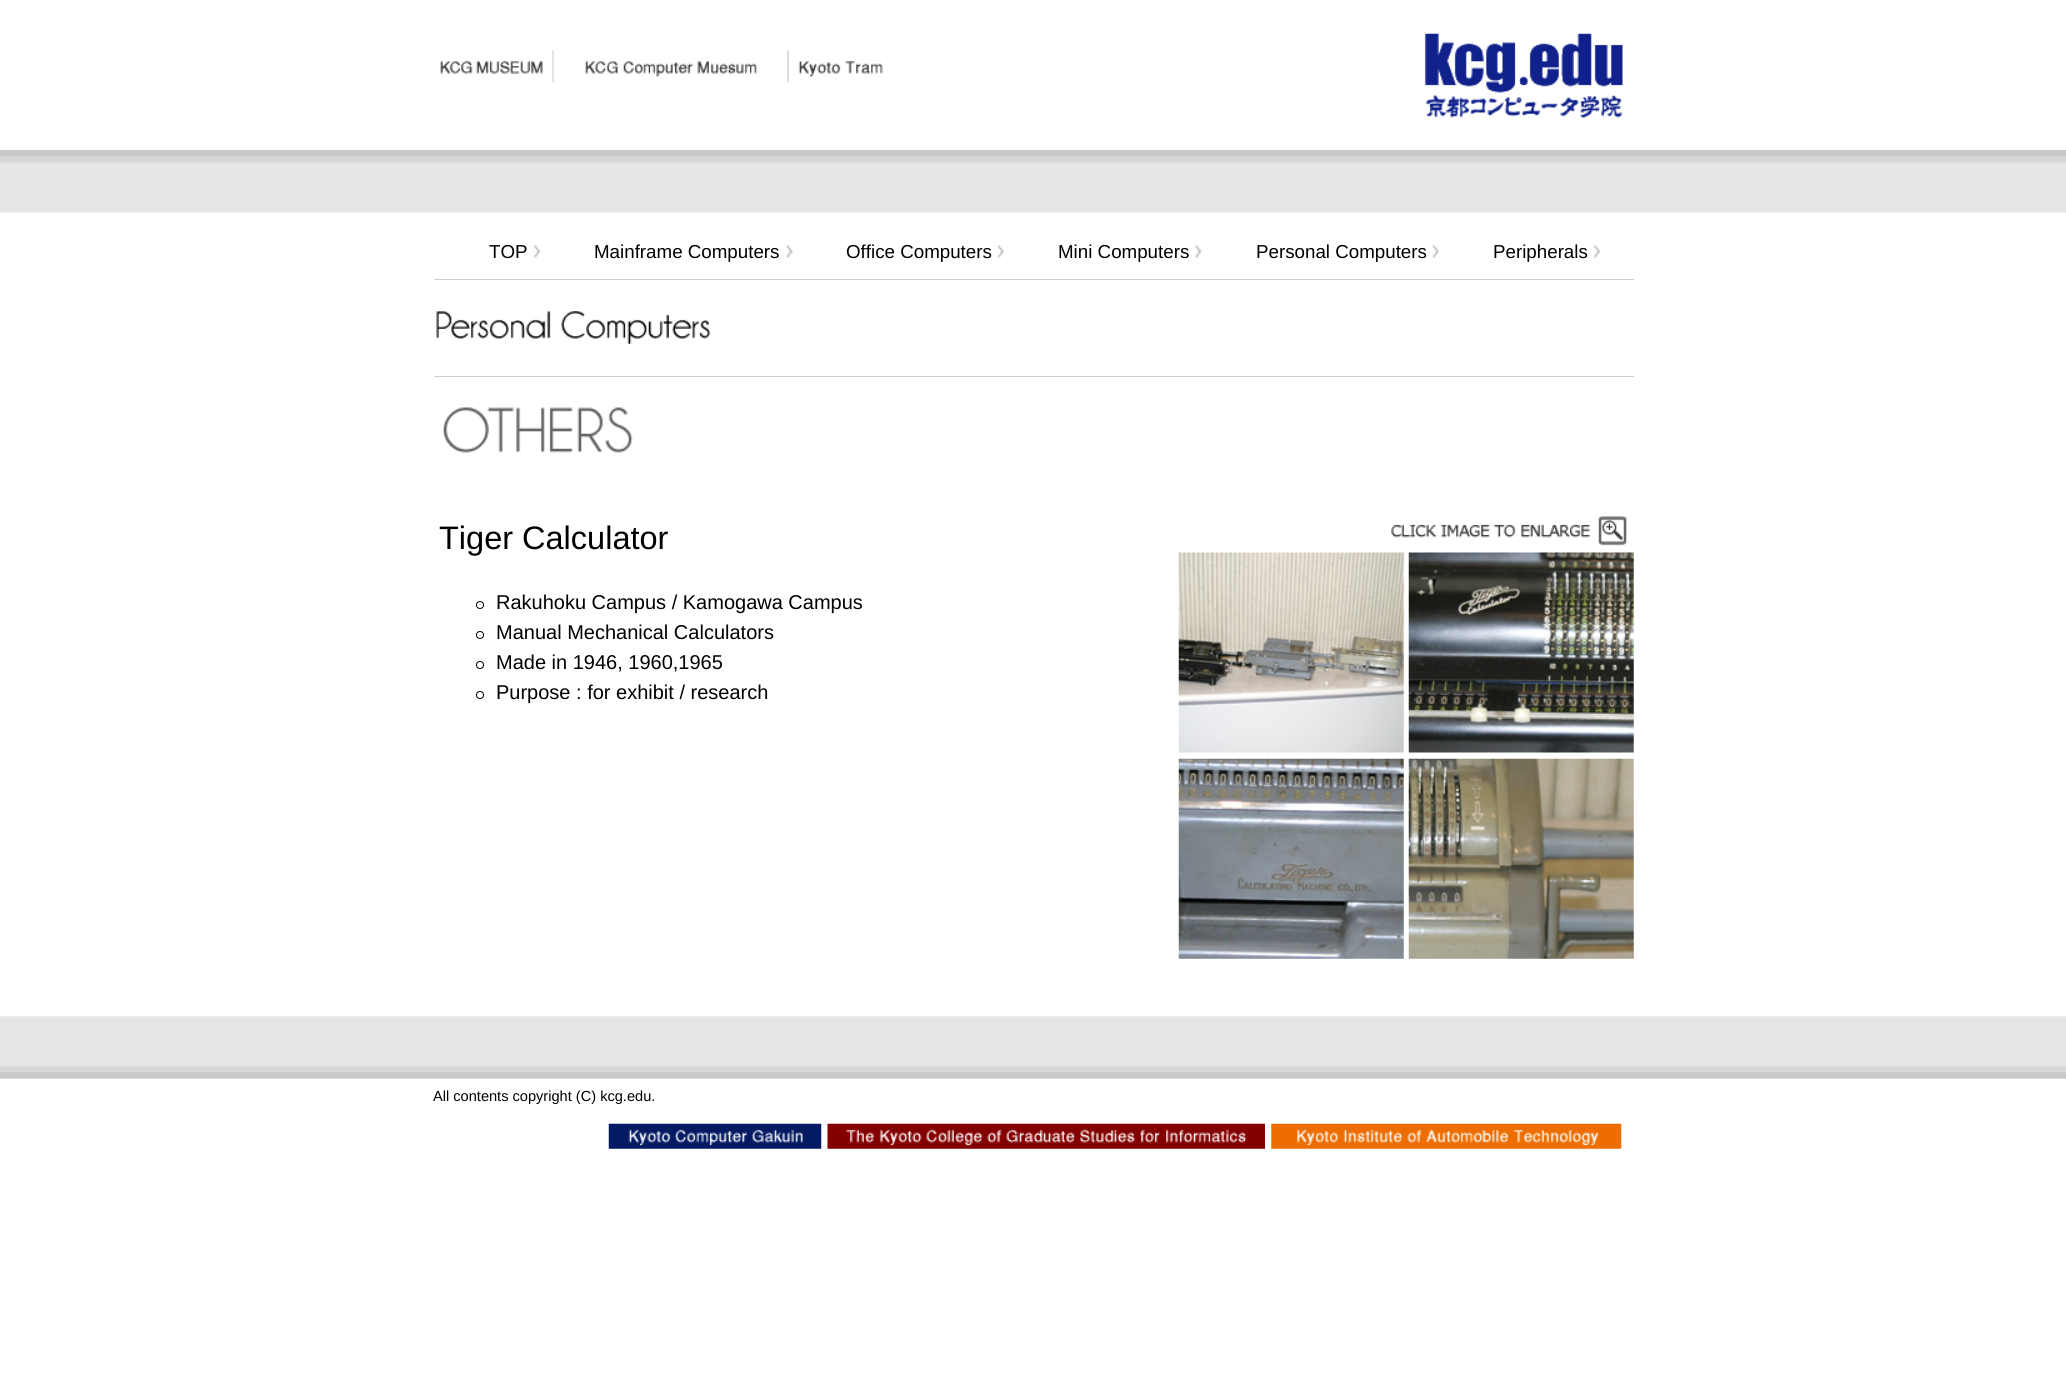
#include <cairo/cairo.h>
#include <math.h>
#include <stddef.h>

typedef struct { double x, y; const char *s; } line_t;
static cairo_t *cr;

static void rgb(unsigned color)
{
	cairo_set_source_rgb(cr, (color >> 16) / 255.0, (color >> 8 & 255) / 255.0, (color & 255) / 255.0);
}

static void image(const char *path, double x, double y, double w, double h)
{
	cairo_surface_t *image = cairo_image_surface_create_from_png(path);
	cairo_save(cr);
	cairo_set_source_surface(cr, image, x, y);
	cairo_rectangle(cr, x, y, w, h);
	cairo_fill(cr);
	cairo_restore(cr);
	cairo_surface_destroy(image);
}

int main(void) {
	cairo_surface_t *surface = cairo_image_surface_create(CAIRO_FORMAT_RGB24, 2066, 1398);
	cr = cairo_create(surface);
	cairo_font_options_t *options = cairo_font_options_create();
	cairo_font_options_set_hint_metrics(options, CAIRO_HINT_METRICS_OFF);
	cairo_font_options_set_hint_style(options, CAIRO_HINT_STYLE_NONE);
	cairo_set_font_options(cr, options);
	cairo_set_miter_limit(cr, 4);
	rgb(0xffffff);
	cairo_paint(cr);
	image("img/1.png", 0, 149, 2066, 64);
	image("img/2.png", 440, 50, 114, 33);
	image("img/3.png", 553, 50, 204, 32);
	image("img/4.png", 787, 50, 96, 33);
	image("img/5.png", 1424, 33, 199, 85);
	rgb(0xcccccc);
	cairo_rectangle(cr, 434, 279, 1200, 1);
	cairo_fill(cr);
	image("img/6.png", 533, 245, 8, 13);
	image("img/7.png", 785, 245, 8, 13);
	image("img/8.png", 996, 245, 8, 13);
	image("img/9.png", 1194, 245, 8, 13);
	image("img/10.png", 1431, 245, 8, 13);
	image("img/6.png", 1593, 245, 8, 13);
	cairo_rectangle(cr, 434, 376, 1200, 1);
	cairo_fill(cr);
	image("img/11.png", 436, 311, 275, 33);
	image("img/12.png", 443, 407, 190, 46);
	cairo_arc(cr, 480, 605, 3.5, 0, 2 * M_PI);
	rgb(0x000000);
	cairo_set_line_width(cr, 1);
	cairo_stroke(cr);
	cairo_arc(cr, 480, 635, 3.5, 0, 2 * M_PI);
	cairo_stroke(cr);
	cairo_arc(cr, 480, 665, 3.5, 0, 2 * M_PI);
	cairo_stroke(cr);
	cairo_arc(cr, 480, 695, 3.5, 0, 2 * M_PI);
	cairo_stroke(cr);
	image("img/13.png", 1391, 516, 236, 30);
	image("img/14.png", 1178, 552, 226, 201);
	image("img/15.png", 1408, 552, 226, 201);
	image("img/16.png", 1178, 758, 226, 201);
	image("img/17.png", 1408, 758, 226, 201);
	image("img/18.png", 0, 1016, 2066, 63);
	image("img/19.png", 608, 1123, 214, 26);
	image("img/20.png", 827, 1123, 438, 26);
	image("img/21.png", 1271, 1123, 351, 26);
	cairo_select_font_face(cr, "Liberation Sans", CAIRO_FONT_SLANT_NORMAL, CAIRO_FONT_WEIGHT_NORMAL);
	cairo_set_font_size(cr, 18.75);
	{
		static const line_t items[] = {
			{489, 258, "TOP"},
			{594, 258, "Mainframe Computers"},
			{846, 258, "Office Computers"},
			{1058, 258, "Mini Computers"},
			{1256, 258, "Personal Computers"},
			{1493, 258, "Peripherals"},
		};
		for (size_t i = 0; i < sizeof items / sizeof *items; i++) {
			cairo_move_to(cr, items[i].x, items[i].y);
			cairo_show_text(cr, items[i].s);
		}
	}
	cairo_set_font_size(cr, 32.5);
	cairo_move_to(cr, 439, 549);
	cairo_show_text(cr, "Tiger Calculator");
	cairo_set_font_size(cr, 20);
	{
		static const line_t items[] = {
			{496, 609, "Rakuhoku Campus / Kamogawa Campus"},
			{496, 639, "Manual Mechanical Calculators"},
			{496, 669, "Made in 1946, 1960,1965"},
			{496, 699, "Purpose : for exhibit / research"},
		};
		for (size_t i = 0; i < sizeof items / sizeof *items; i++) {
			cairo_move_to(cr, items[i].x, items[i].y);
			cairo_show_text(cr, items[i].s);
		}
	}
	cairo_set_font_size(cr, 14.6);
	cairo_move_to(cr, 433, 1101);
	cairo_show_text(cr, "All contents copyright (C) kcg.edu.");
	cairo_surface_write_to_png(surface, "page.png");
	cairo_font_options_destroy(options);
	cairo_destroy(cr);
	cairo_surface_destroy(surface);
	return 0;
}
